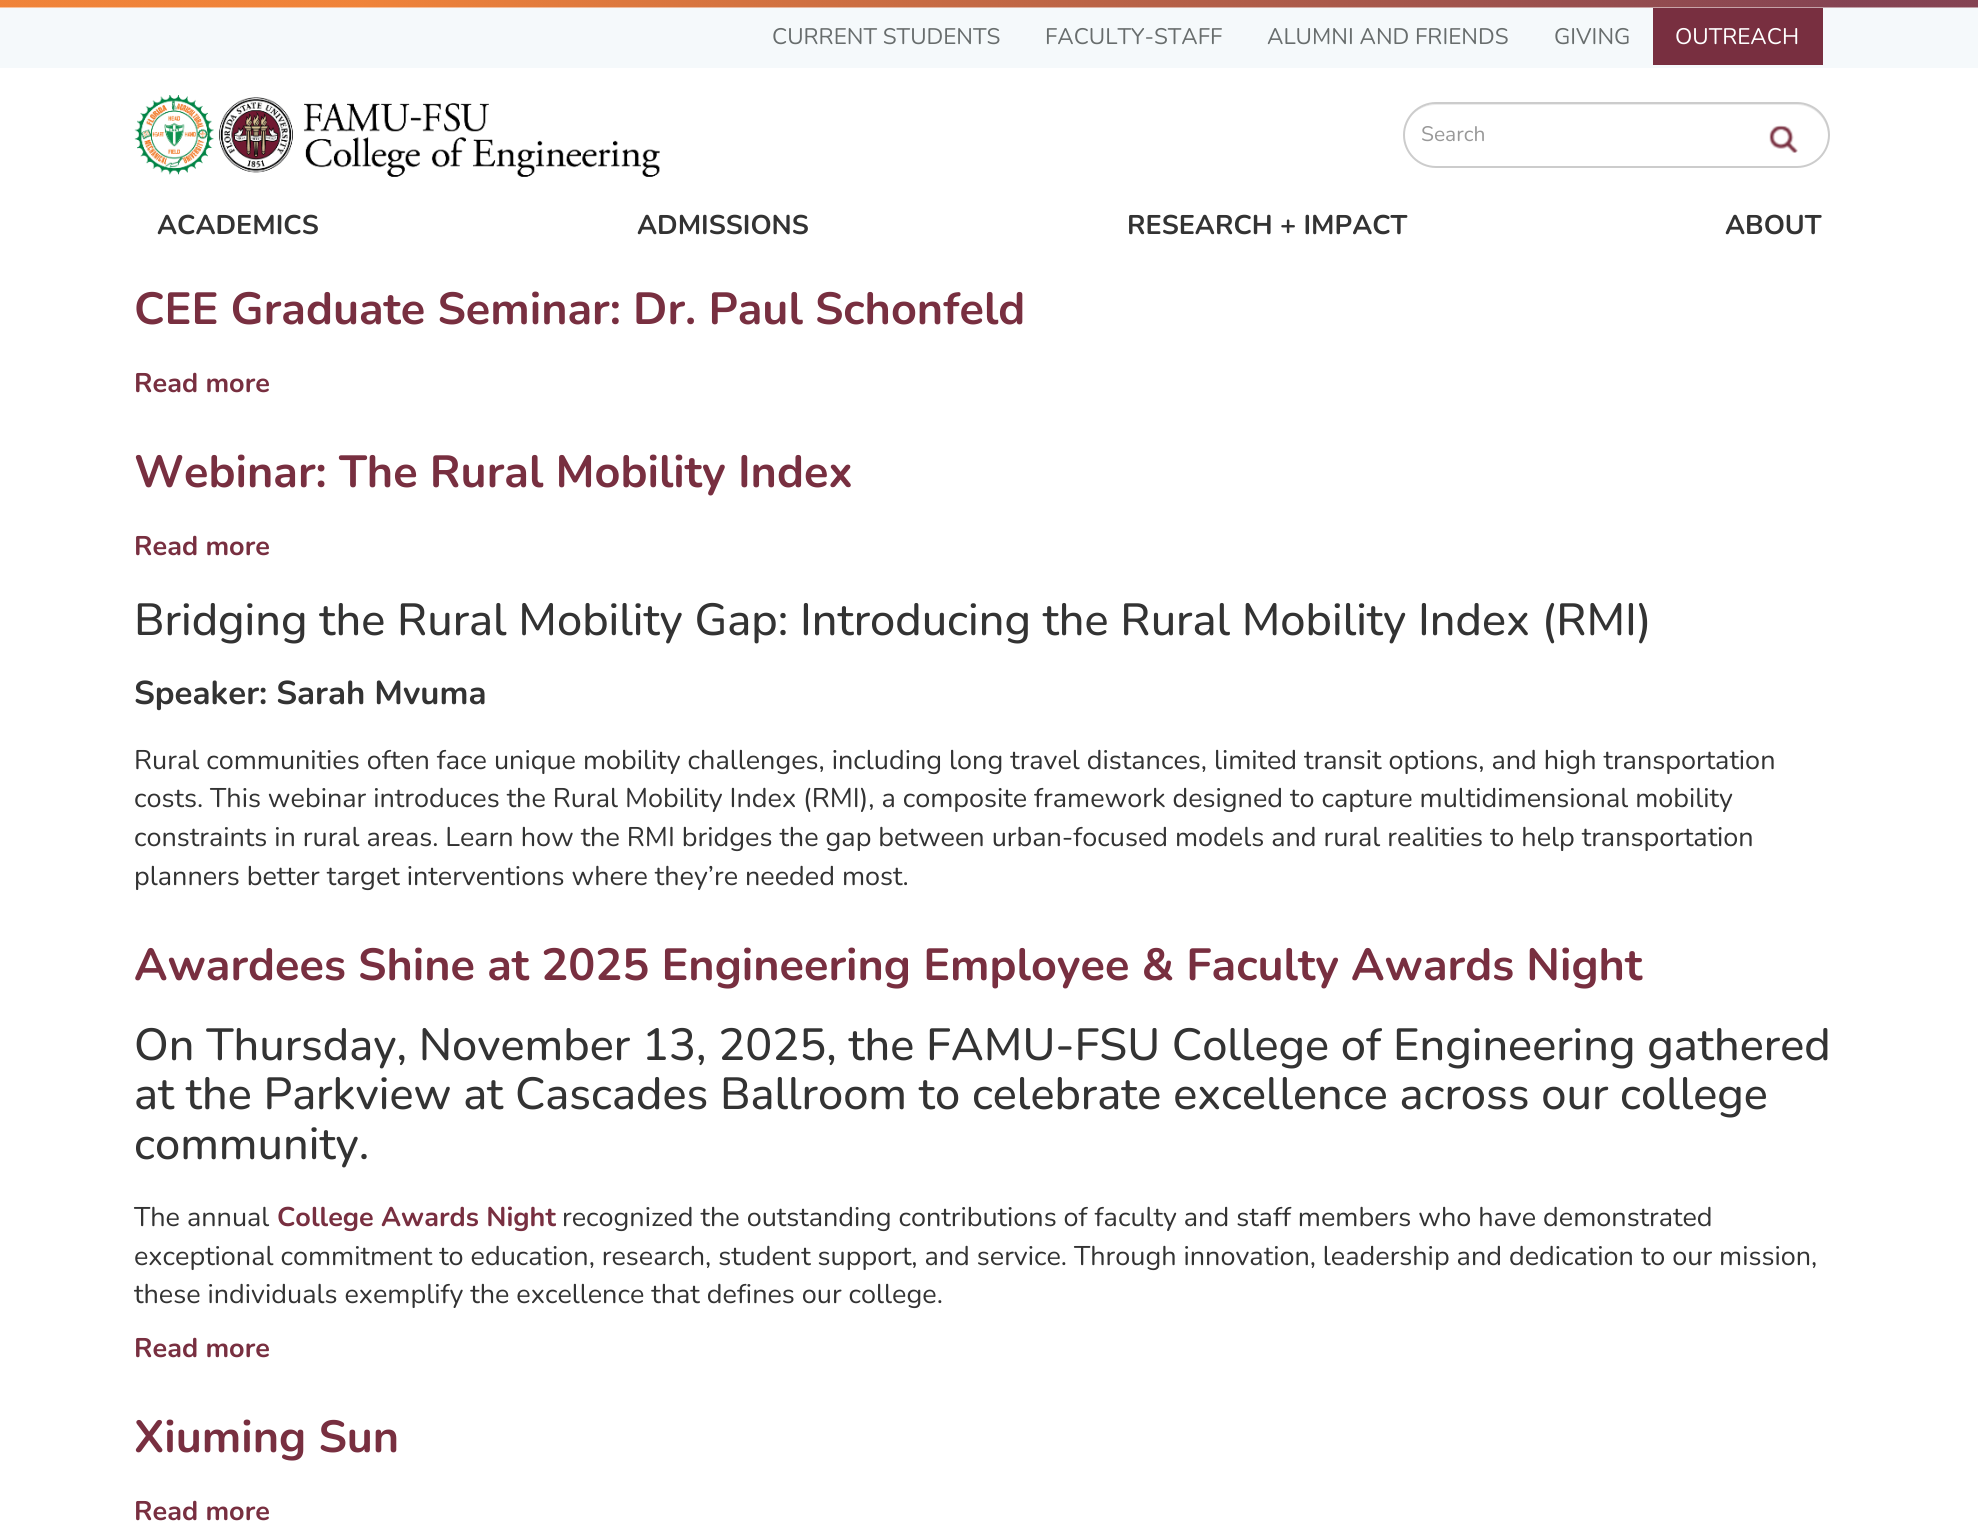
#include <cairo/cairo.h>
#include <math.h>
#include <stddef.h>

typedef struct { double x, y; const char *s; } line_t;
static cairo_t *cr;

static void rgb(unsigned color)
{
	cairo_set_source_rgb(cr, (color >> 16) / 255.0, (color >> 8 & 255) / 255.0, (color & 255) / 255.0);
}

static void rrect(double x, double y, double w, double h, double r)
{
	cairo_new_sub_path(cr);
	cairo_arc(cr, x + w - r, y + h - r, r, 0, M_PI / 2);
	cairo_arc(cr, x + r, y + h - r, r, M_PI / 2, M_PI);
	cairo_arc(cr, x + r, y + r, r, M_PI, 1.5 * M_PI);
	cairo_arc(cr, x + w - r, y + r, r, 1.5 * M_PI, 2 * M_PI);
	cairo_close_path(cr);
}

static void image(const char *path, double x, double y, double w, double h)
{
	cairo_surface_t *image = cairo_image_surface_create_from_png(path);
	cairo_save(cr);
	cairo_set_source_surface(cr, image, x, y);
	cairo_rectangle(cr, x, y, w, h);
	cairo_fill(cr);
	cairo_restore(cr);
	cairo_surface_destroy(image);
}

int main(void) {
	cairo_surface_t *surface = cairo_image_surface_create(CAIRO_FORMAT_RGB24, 1978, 1530);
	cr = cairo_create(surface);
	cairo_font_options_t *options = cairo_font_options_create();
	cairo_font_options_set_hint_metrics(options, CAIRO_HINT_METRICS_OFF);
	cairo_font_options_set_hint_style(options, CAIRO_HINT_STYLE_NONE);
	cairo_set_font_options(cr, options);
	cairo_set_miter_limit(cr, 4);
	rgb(0xffffff);
	cairo_paint(cr);
	image("img/1.png", 0, 0, 1978, 8);
	rgb(0xf5f9fb);
	cairo_rectangle(cr, 0, 8, 1978, 60);
	cairo_fill(cr);
	rgb(0x782f40);
	cairo_rectangle(cr, 1653, 8, 170, 57);
	cairo_fill(cr);
	image("img/2.png", 134, 95, 526, 82);
	rgb(0xececec);
	cairo_new_path(cr);
	cairo_move_to(cr, 1436, 105);
	cairo_line_to(cr, 1797, 105);
	cairo_curve_to(cr, 1814, 105, 1828, 119, 1828, 136);
	cairo_curve_to(cr, 1828, 144, 1825, 152, 1820, 158);
	cairo_curve_to(cr, 1826, 152, 1829, 144, 1829, 136);
	cairo_curve_to(cr, 1829, 118, 1815, 104, 1798, 104);
	cairo_line_to(cr, 1436, 104);
	cairo_curve_to(cr, 1418, 104, 1404, 118, 1404, 136);
	cairo_curve_to(cr, 1404, 119, 1418, 105, 1436, 105);
	cairo_close_path(cr);
	cairo_fill(cr);
	rrect(1404, 103, 425, 64, 32);
	rgb(0xcccccc);
	cairo_stroke(cr);
	image("img/3.png", 1769, 125, 29, 28);
	cairo_select_font_face(cr, "Nunito", CAIRO_FONT_SLANT_NORMAL, CAIRO_FONT_WEIGHT_NORMAL);
	cairo_set_font_size(cr, 22.5);
	rgb(0x686d6d);
	{
		static const line_t items[] = {
			{772, 44, "CURRENT STUDENTS"},
			{1045, 44, "FACULTY-STAFF"},
			{1267, 44, "ALUMNI AND FRIENDS"},
			{1554, 44, "GIVING"},
		};
		for (size_t i = 0; i < sizeof items / sizeof *items; i++) {
			cairo_move_to(cr, items[i].x, items[i].y);
			cairo_show_text(cr, items[i].s);
		}
	}
	rgb(0xffffff);
	cairo_move_to(cr, 1675, 44);
	cairo_show_text(cr, "OUTREACH");
	cairo_set_font_size(cr, 21);
	rgb(0x999999);
	cairo_move_to(cr, 1421, 141);
	cairo_show_text(cr, "Search");
	cairo_select_font_face(cr, "Nunito", CAIRO_FONT_SLANT_NORMAL, CAIRO_FONT_WEIGHT_BOLD);
	cairo_set_font_size(cr, 27);
	rgb(0x333333);
	{
		static const line_t items[] = {
			{157, 234, "ACADEMICS"},
			{637, 234, "ADMISSIONS"},
			{1127, 234, "RESEARCH + IMPACT"},
			{1725, 234, "ABOUT"},
		};
		for (size_t i = 0; i < sizeof items / sizeof *items; i++) {
			cairo_move_to(cr, items[i].x, items[i].y);
			cairo_show_text(cr, items[i].s);
		}
	}
	cairo_set_font_size(cr, 45);
	rgb(0x782f40);
	cairo_move_to(cr, 134, 324);
	cairo_show_text(cr, "CEE Graduate Seminar: Dr. Paul Schonfeld");
	cairo_set_font_size(cr, 27);
	cairo_move_to(cr, 134, 392);
	cairo_show_text(cr, "Read more");
	cairo_set_font_size(cr, 45);
	cairo_move_to(cr, 134, 487);
	cairo_show_text(cr, "Webinar: The Rural Mobility Index");
	cairo_set_font_size(cr, 27);
	cairo_move_to(cr, 134, 555);
	cairo_show_text(cr, "Read more");
	cairo_select_font_face(cr, "Nunito Medium", CAIRO_FONT_SLANT_NORMAL, CAIRO_FONT_WEIGHT_NORMAL);
	cairo_set_font_size(cr, 45);
	rgb(0x333333);
	cairo_move_to(cr, 134, 635);
	cairo_show_text(cr, "Bridging the Rural Mobility Gap: Introducing the Rural Mobility Index (RMI)");
	cairo_select_font_face(cr, "Nunito", CAIRO_FONT_SLANT_NORMAL, CAIRO_FONT_WEIGHT_BOLD);
	cairo_set_font_size(cr, 33);
	cairo_move_to(cr, 134, 704);
	cairo_show_text(cr, "Speaker: Sarah Mvuma");
	cairo_select_font_face(cr, "Nunito", CAIRO_FONT_SLANT_NORMAL, CAIRO_FONT_WEIGHT_NORMAL);
	cairo_set_font_size(cr, 27);
	{
		static const line_t items[] = {
			{134, 769, "Rural communities often face unique mobility challenges, including long travel distances, limited transit options, and high transportation"},
			{134, 807, "costs. This webinar introduces the Rural Mobility Index (RMI), a composite framework designed to capture multidimensional mobility"},
			{134, 846, "constraints in rural areas. Learn how the RMI bridges the gap between urban-focused models and rural realities to help transportation"},
			{134, 885, "planners better target interventions where they’re needed most."},
		};
		for (size_t i = 0; i < sizeof items / sizeof *items; i++) {
			cairo_move_to(cr, items[i].x, items[i].y);
			cairo_show_text(cr, items[i].s);
		}
	}
	cairo_select_font_face(cr, "Nunito", CAIRO_FONT_SLANT_NORMAL, CAIRO_FONT_WEIGHT_BOLD);
	cairo_set_font_size(cr, 45);
	rgb(0x782f40);
	cairo_move_to(cr, 134, 980);
	cairo_show_text(cr, "Awardees Shine at 2025 Engineering Employee & Faculty Awards Night");
	cairo_select_font_face(cr, "Nunito Medium", CAIRO_FONT_SLANT_NORMAL, CAIRO_FONT_WEIGHT_NORMAL);
	rgb(0x333333);
	{
		static const line_t items[] = {
			{134, 1060, "On Thursday, November 13, 2025, the FAMU-FSU College of Engineering gathered"},
			{134, 1109, "at the Parkview at Cascades Ballroom to celebrate excellence across our college"},
			{134, 1159, "community."},
		};
		for (size_t i = 0; i < sizeof items / sizeof *items; i++) {
			cairo_move_to(cr, items[i].x, items[i].y);
			cairo_show_text(cr, items[i].s);
		}
	}
	cairo_select_font_face(cr, "Nunito", CAIRO_FONT_SLANT_NORMAL, CAIRO_FONT_WEIGHT_NORMAL);
	cairo_set_font_size(cr, 27);
	cairo_move_to(cr, 134, 1226);
	cairo_show_text(cr, "The annual");
	cairo_select_font_face(cr, "Nunito", CAIRO_FONT_SLANT_NORMAL, CAIRO_FONT_WEIGHT_BOLD);
	rgb(0x782f40);
	cairo_move_to(cr, 277, 1226);
	cairo_show_text(cr, "College Awards Night");
	cairo_select_font_face(cr, "Nunito", CAIRO_FONT_SLANT_NORMAL, CAIRO_FONT_WEIGHT_NORMAL);
	rgb(0x333333);
	{
		static const line_t items[] = {
			{562, 1226, "recognized the outstanding contributions of faculty and staff members who have demonstrated"},
			{134, 1265, "exceptional commitment to education, research, student support, and service. Through innovation, leadership and dedication to our mission,"},
			{134, 1303, "these individuals exemplify the excellence that defines our college."},
		};
		for (size_t i = 0; i < sizeof items / sizeof *items; i++) {
			cairo_move_to(cr, items[i].x, items[i].y);
			cairo_show_text(cr, items[i].s);
		}
	}
	cairo_select_font_face(cr, "Nunito", CAIRO_FONT_SLANT_NORMAL, CAIRO_FONT_WEIGHT_BOLD);
	rgb(0x782f40);
	cairo_move_to(cr, 134, 1357);
	cairo_show_text(cr, "Read more");
	cairo_set_font_size(cr, 45);
	cairo_move_to(cr, 134, 1452);
	cairo_show_text(cr, "Xiuming Sun");
	cairo_set_font_size(cr, 27);
	cairo_move_to(cr, 134, 1520);
	cairo_show_text(cr, "Read more");
	cairo_surface_write_to_png(surface, "page.png");
	cairo_font_options_destroy(options);
	cairo_destroy(cr);
	cairo_surface_destroy(surface);
	return 0;
}
